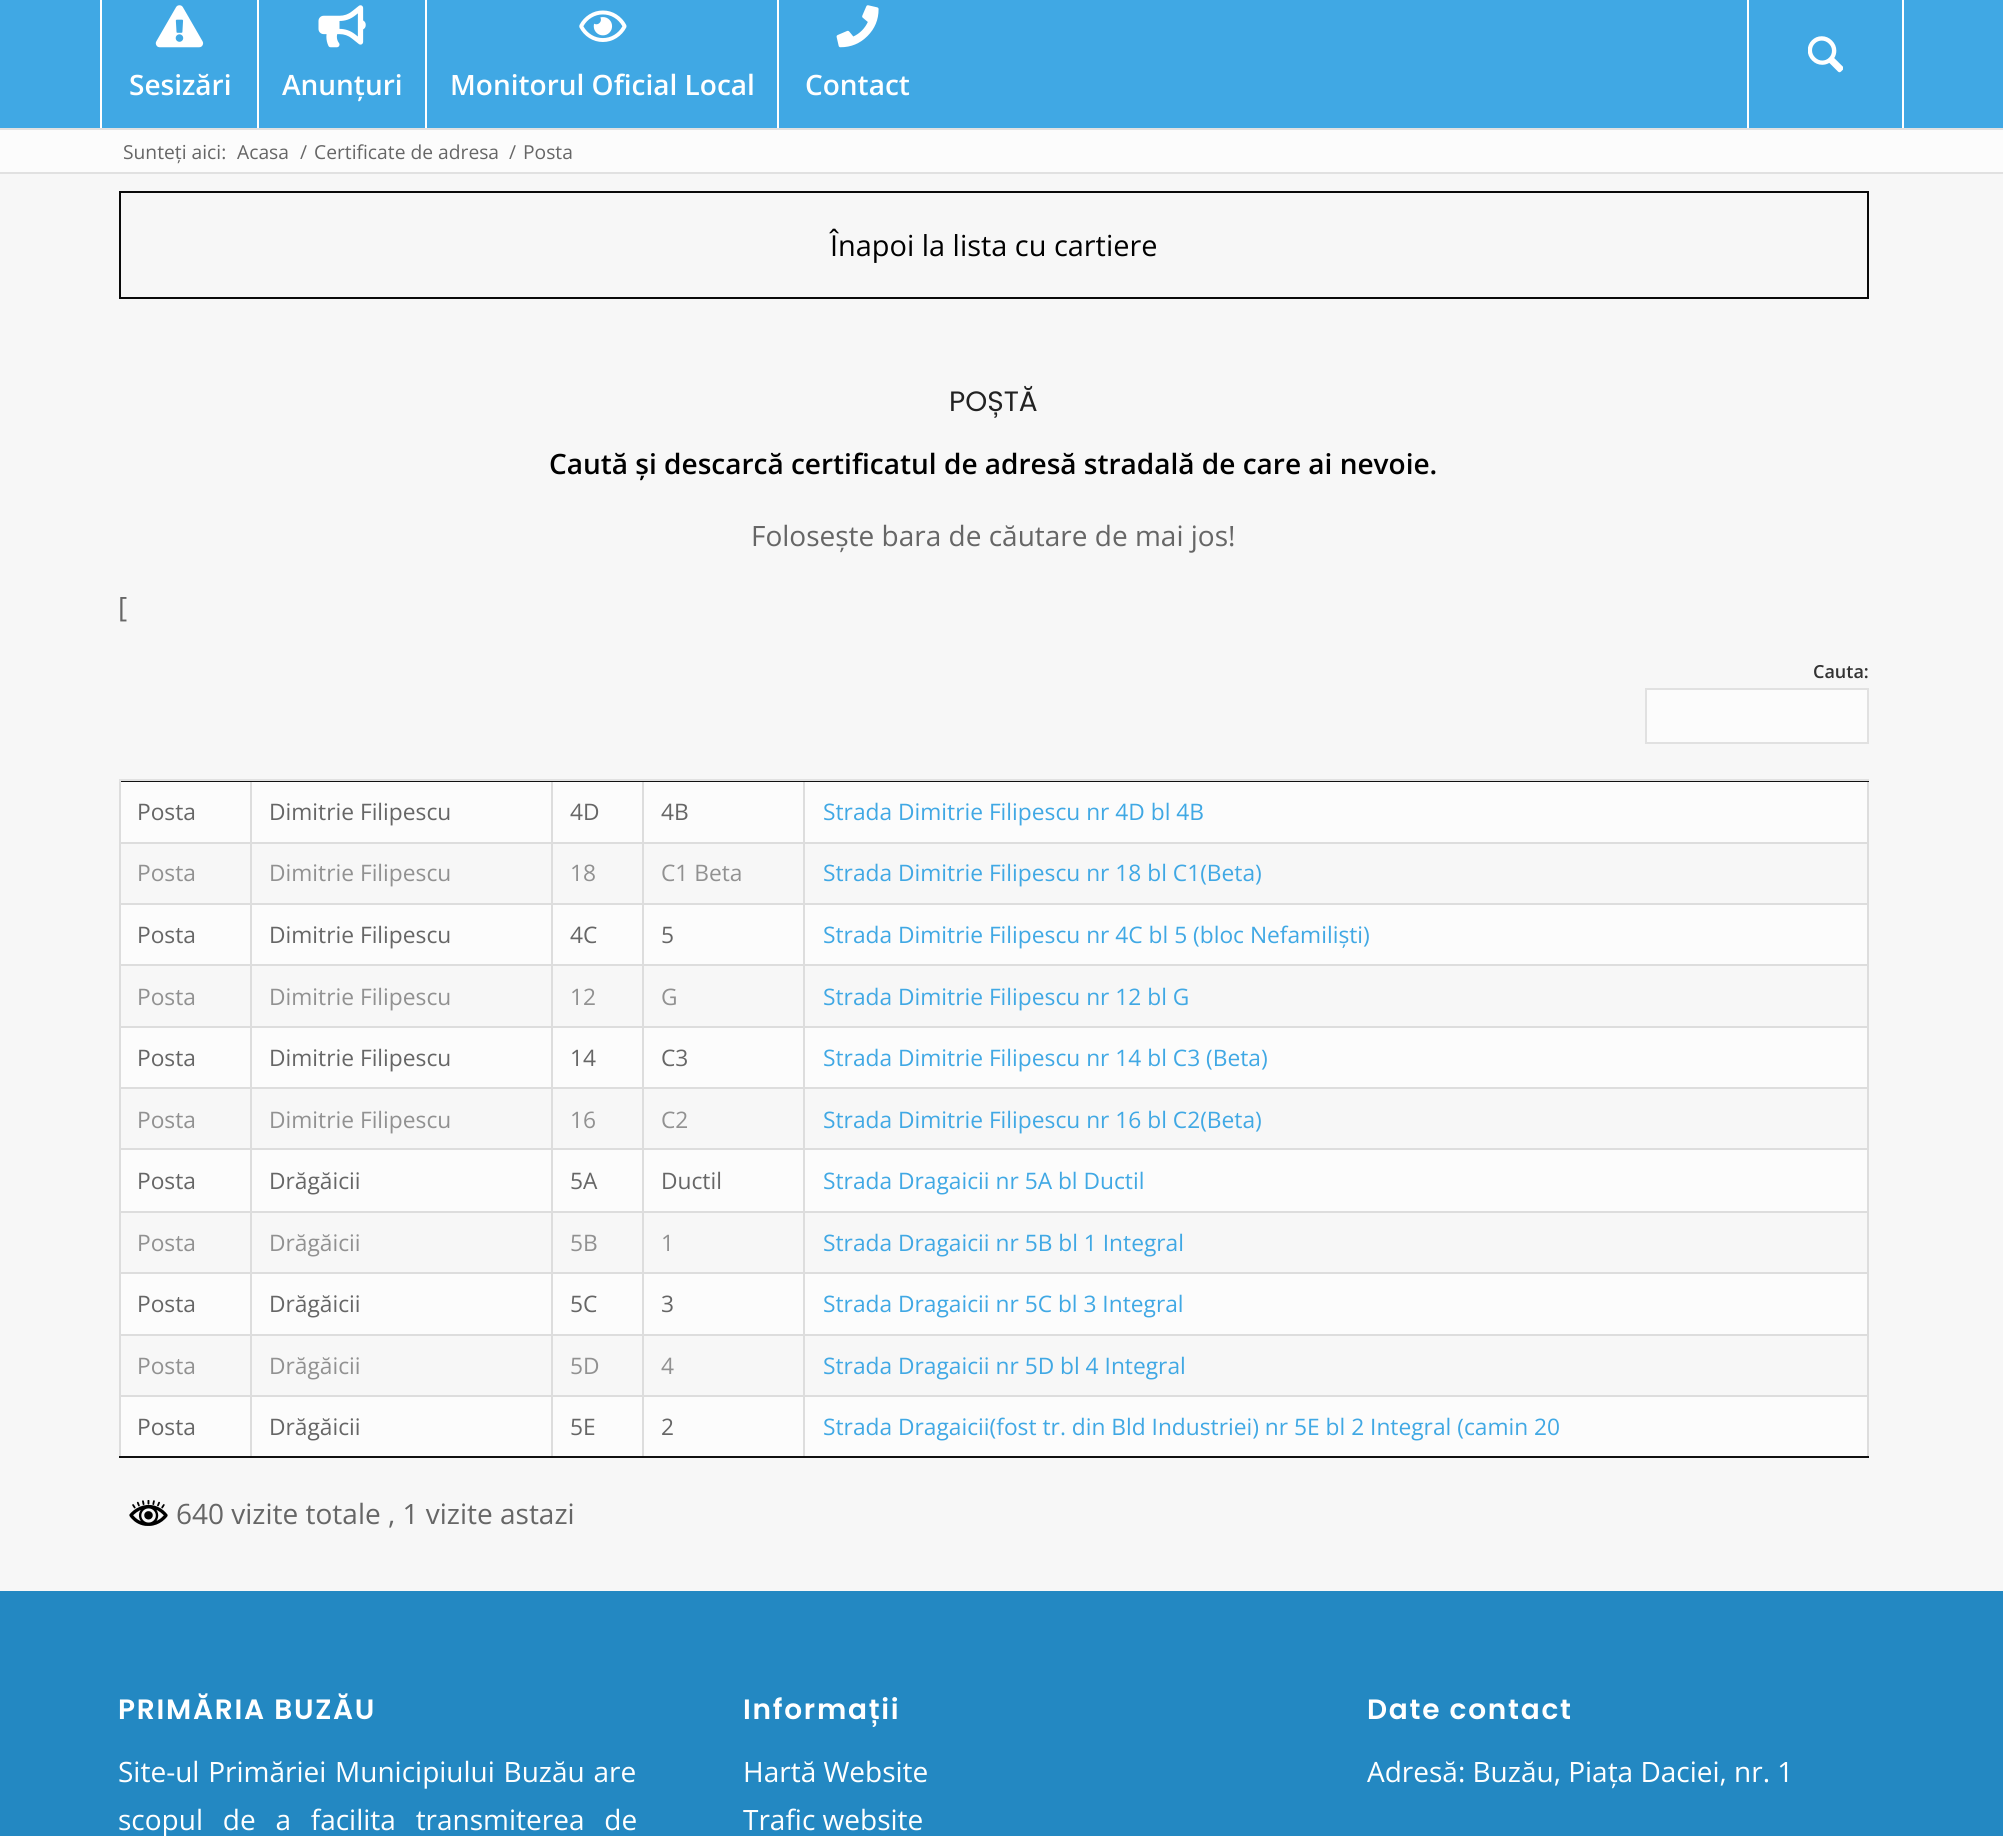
#include <cairo/cairo.h>
#include <math.h>
#include <stddef.h>

typedef struct { double x, y; const char *s; } line_t;
typedef struct { double x, y, w, h; unsigned color; } box_t;
static cairo_t *cr;

static void rgb(unsigned color)
{
	cairo_set_source_rgb(cr, (color >> 16) / 255.0, (color >> 8 & 255) / 255.0, (color & 255) / 255.0);
}

static void tracked(double x, double y, const char *s, double letter, double word)
{
	cairo_move_to(cr, x, y);
	while (*s) {
		char ch[5] = {0};
		int n = 0;
		do ch[n++] = *s++; while ((*s & 0xC0) == 0x80);
		cairo_show_text(cr, ch);
		cairo_rel_move_to(cr, letter + word * (*ch == ' '), 0);
	}
}

static void image(const char *path, double x, double y, double w, double h)
{
	cairo_surface_t *image = cairo_image_surface_create_from_png(path);
	cairo_save(cr);
	cairo_set_source_surface(cr, image, x, y);
	cairo_rectangle(cr, x, y, w, h);
	cairo_fill(cr);
	cairo_restore(cr);
	cairo_surface_destroy(image);
}

int main(void) {
	cairo_surface_t *surface = cairo_image_surface_create(CAIRO_FORMAT_RGB24, 2003, 1836);
	cr = cairo_create(surface);
	cairo_font_options_t *options = cairo_font_options_create();
	cairo_font_options_set_hint_metrics(options, CAIRO_HINT_METRICS_OFF);
	cairo_font_options_set_hint_style(options, CAIRO_HINT_STYLE_NONE);
	cairo_set_font_options(cr, options);
	cairo_set_miter_limit(cr, 4);
	rgb(0xfcfcfc);
	cairo_paint(cr);
	{
		static const box_t items[] = {
			{0, 128, 2003, 2, 0xe1e1e1},
			{0, 0, 2003, 128, 0x40a8e4},
			{100, 0, 2, 128, 0xffffff},
		};
		for (size_t i = 0; i < sizeof items / sizeof *items; i++) {
			rgb(items[i].color);
			cairo_rectangle(cr, items[i].x, items[i].y, items[i].w, items[i].h);
			cairo_fill(cr);
		}
	}
	image("img/1.png", 155, 5, 49, 43);
	cairo_rectangle(cr, 257, 0, 2, 128);
	cairo_fill(cr);
	image("img/2.png", 318, 5, 48, 43);
	cairo_rectangle(cr, 425, 0, 2, 128);
	cairo_fill(cr);
	image("img/3.png", 579, 10, 48, 32);
	cairo_rectangle(cr, 777, 0, 2, 128);
	cairo_fill(cr);
	image("img/4.png", 836, 5, 43, 43);
	cairo_rectangle(cr, 1902, 0, 2, 128);
	cairo_fill(cr);
	cairo_rectangle(cr, 1747, 0, 2, 128);
	cairo_fill(cr);
	image("img/5.png", 1808, 36, 35, 37);
	rgb(0xf7f7f7);
	cairo_rectangle(cr, 0, 174, 2003, 1417);
	cairo_fill(cr);
	rgb(0xe1e1e1);
	cairo_rectangle(cr, 0, 172, 2003, 2);
	cairo_fill(cr);
	cairo_rectangle(cr, 120, 192, 1748, 106);
	rgb(0x0a0a0a);
	cairo_stroke(cr);
	rgb(0xfcfcfc);
	cairo_rectangle(cr, 1646, 689, 222, 54);
	cairo_fill_preserve(cr);
	rgb(0xe1e1e1);
	cairo_stroke(cr);
	{
		static const box_t items[] = {
			{121, 905, 1746, 551, 0xfcfcfc},
			{119, 1456, 1750, 2, 0x111111},
			{119, 779, 1750, 2, 0xe1e1e1},
			{250, 779, 2, 4, 0xe1e1e1},
			{119, 781, 133, 1, 0x111111},
			{119, 779, 2, 4, 0xe1e1e1},
			{551, 779, 2, 4, 0xe1e1e1},
			{252, 781, 301, 1, 0x111111},
			{642, 779, 2, 4, 0xe1e1e1},
			{553, 781, 91, 1, 0x111111},
			{803, 779, 2, 4, 0xe1e1e1},
			{644, 781, 161, 1, 0x111111},
			{1867, 779, 2, 4, 0xe1e1e1},
			{805, 781, 1064, 1, 0x111111},
			{121, 782, 1746, 60, 0xfcfcfc},
			{250, 782, 2, 60, 0xdddddd},
			{119, 782, 2, 60, 0xdddddd},
			{551, 782, 2, 60, 0xdddddd},
			{642, 782, 2, 60, 0xdddddd},
			{803, 782, 2, 60, 0xdddddd},
			{1867, 782, 2, 60, 0xdddddd},
			{119, 842, 1750, 2, 0xdddddd},
			{250, 842, 2, 61, 0xdddddd},
			{119, 842, 2, 61, 0xdddddd},
			{551, 842, 2, 61, 0xdddddd},
			{642, 842, 2, 61, 0xdddddd},
			{803, 842, 2, 61, 0xdddddd},
			{1867, 842, 2, 61, 0xdddddd},
			{119, 903, 1750, 2, 0xdddddd},
			{250, 903, 2, 61, 0xdddddd},
			{119, 903, 2, 61, 0xdddddd},
			{551, 903, 2, 61, 0xdddddd},
			{642, 903, 2, 61, 0xdddddd},
			{803, 903, 2, 61, 0xdddddd},
			{1867, 903, 2, 61, 0xdddddd},
			{121, 966, 1746, 60, 0xf7f7f7},
			{119, 964, 1750, 2, 0xdddddd},
			{250, 964, 2, 62, 0xdddddd},
			{119, 964, 2, 62, 0xdddddd},
			{551, 964, 2, 62, 0xdddddd},
			{642, 964, 2, 62, 0xdddddd},
			{803, 964, 2, 62, 0xdddddd},
			{1867, 964, 2, 62, 0xdddddd},
			{119, 1026, 1750, 2, 0xdddddd},
			{250, 1026, 2, 61, 0xdddddd},
			{119, 1026, 2, 61, 0xdddddd},
			{551, 1026, 2, 61, 0xdddddd},
			{642, 1026, 2, 61, 0xdddddd},
			{803, 1026, 2, 61, 0xdddddd},
			{1867, 1026, 2, 61, 0xdddddd},
			{121, 1089, 1746, 59, 0xf7f7f7},
			{119, 1087, 1750, 2, 0xdddddd},
			{250, 1087, 2, 61, 0xdddddd},
			{119, 1087, 2, 61, 0xdddddd},
			{551, 1087, 2, 61, 0xdddddd},
			{642, 1087, 2, 61, 0xdddddd},
			{803, 1087, 2, 61, 0xdddddd},
			{1867, 1087, 2, 61, 0xdddddd},
			{119, 1148, 1750, 2, 0xdddddd},
			{250, 1148, 2, 63, 0xdddddd},
			{119, 1148, 2, 63, 0xdddddd},
			{551, 1148, 2, 63, 0xdddddd},
			{642, 1148, 2, 63, 0xdddddd},
			{803, 1148, 2, 63, 0xdddddd},
			{1867, 1148, 2, 63, 0xdddddd},
			{121, 1213, 1746, 59, 0xf7f7f7},
			{119, 1211, 1750, 2, 0xdddddd},
			{250, 1211, 2, 61, 0xdddddd},
			{119, 1211, 2, 61, 0xdddddd},
			{551, 1211, 2, 61, 0xdddddd},
			{642, 1211, 2, 61, 0xdddddd},
			{803, 1211, 2, 61, 0xdddddd},
			{1867, 1211, 2, 61, 0xdddddd},
			{119, 1272, 1750, 2, 0xdddddd},
			{250, 1272, 2, 62, 0xdddddd},
			{119, 1272, 2, 62, 0xdddddd},
			{551, 1272, 2, 62, 0xdddddd},
			{642, 1272, 2, 62, 0xdddddd},
			{803, 1272, 2, 62, 0xdddddd},
			{1867, 1272, 2, 62, 0xdddddd},
			{121, 1336, 1746, 59, 0xf7f7f7},
			{119, 1334, 1750, 2, 0xdddddd},
			{250, 1334, 2, 61, 0xdddddd},
			{119, 1334, 2, 61, 0xdddddd},
			{551, 1334, 2, 61, 0xdddddd},
			{642, 1334, 2, 61, 0xdddddd},
			{803, 1334, 2, 61, 0xdddddd},
			{1867, 1334, 2, 61, 0xdddddd},
			{119, 1395, 1750, 2, 0xdddddd},
			{250, 1395, 2, 61, 0xdddddd},
			{119, 1395, 2, 61, 0xdddddd},
			{551, 1395, 2, 61, 0xdddddd},
			{642, 1395, 2, 61, 0xdddddd},
			{803, 1395, 2, 61, 0xdddddd},
			{1867, 1395, 2, 61, 0xdddddd},
		};
		for (size_t i = 0; i < sizeof items / sizeof *items; i++) {
			rgb(items[i].color);
			cairo_rectangle(cr, items[i].x, items[i].y, items[i].w, items[i].h);
			cairo_fill(cr);
		}
	}
	image("img/6.png", 129, 1500, 39, 26);
	rgb(0x2388c2);
	cairo_rectangle(cr, 0, 1591, 2003, 245);
	cairo_fill(cr);
	cairo_select_font_face(cr, "Open Sans SemiBold", CAIRO_FONT_SLANT_NORMAL, CAIRO_FONT_WEIGHT_NORMAL);
	cairo_set_font_size(cr, 28);
	rgb(0xffffff);
	{
		static const line_t items[] = {
			{129, 95, "Sesizări"},
			{282, 95, "Anunțuri"},
			{450, 95, "Monitorul Oficial Local"},
			{805, 95, "Contact"},
		};
		for (size_t i = 0; i < sizeof items / sizeof *items; i++) {
			cairo_move_to(cr, items[i].x, items[i].y);
			cairo_show_text(cr, items[i].s);
		}
	}
	cairo_select_font_face(cr, "Open Sans", CAIRO_FONT_SLANT_NORMAL, CAIRO_FONT_WEIGHT_NORMAL);
	cairo_set_font_size(cr, 19.25);
	rgb(0x666666);
	{
		static const line_t items[] = {
			{123, 159, "Sunteți aici:"},
			{237, 159, "Acasa"},
			{300, 159, "/"},
			{314, 159, "Certificate de adresa"},
			{509, 159, "/"},
			{523, 159, "Posta"},
		};
		for (size_t i = 0; i < sizeof items / sizeof *items; i++) {
			cairo_move_to(cr, items[i].x, items[i].y);
			cairo_show_text(cr, items[i].s);
		}
	}
	cairo_set_font_size(cr, 28.9);
	rgb(0x000000);
	cairo_move_to(cr, 830, 256);
	cairo_show_text(cr, "Înapoi la lista cu cartiere");
	cairo_select_font_face(cr, "Poppins", CAIRO_FONT_SLANT_NORMAL, CAIRO_FONT_WEIGHT_NORMAL);
	cairo_set_font_size(cr, 28);
	rgb(0x222222);
	cairo_move_to(cr, 949, 411);
	cairo_show_text(cr, "POȘTĂ");
	cairo_select_font_face(cr, "Open Sans SemiBold", CAIRO_FONT_SLANT_NORMAL, CAIRO_FONT_WEIGHT_NORMAL);
	rgb(0x000000);
	cairo_move_to(cr, 549, 474);
	cairo_show_text(cr, "Caută și descarcă certificatul de adresă stradală de care ai nevoie.");
	cairo_select_font_face(cr, "Open Sans", CAIRO_FONT_SLANT_NORMAL, CAIRO_FONT_WEIGHT_NORMAL);
	rgb(0x666666);
	cairo_move_to(cr, 751, 546);
	cairo_show_text(cr, "Folosește bara de căutare de mai jos!");
	cairo_move_to(cr, 118, 617);
	cairo_show_text(cr, "[");
	cairo_select_font_face(cr, "Open Sans SemiBold", CAIRO_FONT_SLANT_NORMAL, CAIRO_FONT_WEIGHT_NORMAL);
	cairo_set_font_size(cr, 18);
	rgb(0x333333);
	cairo_move_to(cr, 1813, 678);
	cairo_show_text(cr, "Cauta:");
	cairo_select_font_face(cr, "Open Sans", CAIRO_FONT_SLANT_NORMAL, CAIRO_FONT_WEIGHT_NORMAL);
	cairo_set_font_size(cr, 22.75);
	rgb(0x666666);
	{
		static const line_t items[] = {
			{137, 820, "Posta"},
			{269, 820, "Dimitrie Filipescu"},
			{570, 820, "4D"},
			{661, 820, "4B"},
		};
		for (size_t i = 0; i < sizeof items / sizeof *items; i++) {
			cairo_move_to(cr, items[i].x, items[i].y);
			cairo_show_text(cr, items[i].s);
		}
	}
	rgb(0x40a8e4);
	cairo_move_to(cr, 823, 820);
	cairo_show_text(cr, "Strada Dimitrie Filipescu nr 4D bl 4B");
	rgb(0x919191);
	{
		static const line_t items[] = {
			{137, 881, "Posta"},
			{269, 881, "Dimitrie Filipescu"},
			{570, 881, "18"},
			{661, 881, "C1 Beta"},
		};
		for (size_t i = 0; i < sizeof items / sizeof *items; i++) {
			cairo_move_to(cr, items[i].x, items[i].y);
			cairo_show_text(cr, items[i].s);
		}
	}
	rgb(0x40a8e4);
	cairo_move_to(cr, 823, 881);
	cairo_show_text(cr, "Strada Dimitrie Filipescu nr 18 bl C1(Beta)");
	rgb(0x666666);
	{
		static const line_t items[] = {
			{137, 943, "Posta"},
			{269, 943, "Dimitrie Filipescu"},
			{570, 943, "4C"},
			{661, 943, "5"},
		};
		for (size_t i = 0; i < sizeof items / sizeof *items; i++) {
			cairo_move_to(cr, items[i].x, items[i].y);
			cairo_show_text(cr, items[i].s);
		}
	}
	rgb(0x40a8e4);
	cairo_move_to(cr, 823, 943);
	cairo_show_text(cr, "Strada Dimitrie Filipescu nr 4C bl 5 (bloc Nefamiliști)");
	rgb(0x919191);
	{
		static const line_t items[] = {
			{137, 1005, "Posta"},
			{269, 1005, "Dimitrie Filipescu"},
			{570, 1005, "12"},
			{661, 1005, "G"},
		};
		for (size_t i = 0; i < sizeof items / sizeof *items; i++) {
			cairo_move_to(cr, items[i].x, items[i].y);
			cairo_show_text(cr, items[i].s);
		}
	}
	rgb(0x40a8e4);
	cairo_move_to(cr, 823, 1005);
	cairo_show_text(cr, "Strada Dimitrie Filipescu nr 12 bl G");
	rgb(0x666666);
	{
		static const line_t items[] = {
			{137, 1066, "Posta"},
			{269, 1066, "Dimitrie Filipescu"},
			{570, 1066, "14"},
			{661, 1066, "C3"},
		};
		for (size_t i = 0; i < sizeof items / sizeof *items; i++) {
			cairo_move_to(cr, items[i].x, items[i].y);
			cairo_show_text(cr, items[i].s);
		}
	}
	rgb(0x40a8e4);
	cairo_move_to(cr, 823, 1066);
	cairo_show_text(cr, "Strada Dimitrie Filipescu nr 14 bl C3 (Beta)");
	rgb(0x919191);
	{
		static const line_t items[] = {
			{137, 1128, "Posta"},
			{269, 1128, "Dimitrie Filipescu"},
			{570, 1128, "16"},
			{661, 1128, "C2"},
		};
		for (size_t i = 0; i < sizeof items / sizeof *items; i++) {
			cairo_move_to(cr, items[i].x, items[i].y);
			cairo_show_text(cr, items[i].s);
		}
	}
	rgb(0x40a8e4);
	cairo_move_to(cr, 823, 1128);
	cairo_show_text(cr, "Strada Dimitrie Filipescu nr 16 bl C2(Beta)");
	rgb(0x666666);
	{
		static const line_t items[] = {
			{137, 1189, "Posta"},
			{269, 1189, "Drăgăicii"},
			{570, 1189, "5A"},
			{661, 1189, "Ductil"},
		};
		for (size_t i = 0; i < sizeof items / sizeof *items; i++) {
			cairo_move_to(cr, items[i].x, items[i].y);
			cairo_show_text(cr, items[i].s);
		}
	}
	rgb(0x40a8e4);
	cairo_move_to(cr, 823, 1189);
	cairo_show_text(cr, "Strada Dragaicii nr 5A bl Ductil");
	rgb(0x919191);
	{
		static const line_t items[] = {
			{137, 1251, "Posta"},
			{269, 1251, "Drăgăicii"},
			{570, 1251, "5B"},
			{661, 1251, "1"},
		};
		for (size_t i = 0; i < sizeof items / sizeof *items; i++) {
			cairo_move_to(cr, items[i].x, items[i].y);
			cairo_show_text(cr, items[i].s);
		}
	}
	rgb(0x40a8e4);
	cairo_move_to(cr, 823, 1251);
	cairo_show_text(cr, "Strada Dragaicii nr 5B bl 1 Integral");
	rgb(0x666666);
	{
		static const line_t items[] = {
			{137, 1312, "Posta"},
			{269, 1312, "Drăgăicii"},
			{570, 1312, "5C"},
			{661, 1312, "3"},
		};
		for (size_t i = 0; i < sizeof items / sizeof *items; i++) {
			cairo_move_to(cr, items[i].x, items[i].y);
			cairo_show_text(cr, items[i].s);
		}
	}
	rgb(0x40a8e4);
	cairo_move_to(cr, 823, 1312);
	cairo_show_text(cr, "Strada Dragaicii nr 5C bl 3 Integral");
	rgb(0x919191);
	{
		static const line_t items[] = {
			{137, 1374, "Posta"},
			{269, 1374, "Drăgăicii"},
			{570, 1374, "5D"},
			{661, 1374, "4"},
		};
		for (size_t i = 0; i < sizeof items / sizeof *items; i++) {
			cairo_move_to(cr, items[i].x, items[i].y);
			cairo_show_text(cr, items[i].s);
		}
	}
	rgb(0x40a8e4);
	cairo_move_to(cr, 823, 1374);
	cairo_show_text(cr, "Strada Dragaicii nr 5D bl 4 Integral");
	rgb(0x666666);
	{
		static const line_t items[] = {
			{137, 1435, "Posta"},
			{269, 1435, "Drăgăicii"},
			{570, 1435, "5E"},
			{661, 1435, "2"},
		};
		for (size_t i = 0; i < sizeof items / sizeof *items; i++) {
			cairo_move_to(cr, items[i].x, items[i].y);
			cairo_show_text(cr, items[i].s);
		}
	}
	rgb(0x40a8e4);
	cairo_move_to(cr, 823, 1435);
	cairo_show_text(cr, "Strada Dragaicii(fost tr. din Bld Industriei) nr 5E bl 2 Integral (camin 20");
	cairo_set_font_size(cr, 28);
	rgb(0x666666);
	cairo_move_to(cr, 176, 1524);
	cairo_show_text(cr, "640 vizite totale , 1 vizite astazi");
	cairo_select_font_face(cr, "Poppins SemiBold", CAIRO_FONT_SLANT_NORMAL, CAIRO_FONT_WEIGHT_NORMAL);
	rgb(0xffffff);
	tracked(118, 1719, "PRIMĂRIA BUZĂU", 1.75, 0);
	cairo_select_font_face(cr, "Open Sans", CAIRO_FONT_SLANT_NORMAL, CAIRO_FONT_WEIGHT_NORMAL);
	tracked(118, 1782, "Site-ul Primăriei Municipiului Buzău are", 0, 1.5);
	tracked(118, 1830, "scopul de a facilita transmiterea de", 0, 12.5);
	cairo_select_font_face(cr, "Poppins SemiBold", CAIRO_FONT_SLANT_NORMAL, CAIRO_FONT_WEIGHT_NORMAL);
	tracked(743, 1719, "Informații", 1.75, 0);
	cairo_select_font_face(cr, "Open Sans", CAIRO_FONT_SLANT_NORMAL, CAIRO_FONT_WEIGHT_NORMAL);
	cairo_move_to(cr, 743, 1782);
	cairo_show_text(cr, "Hartă Website");
	cairo_move_to(cr, 743, 1830);
	cairo_show_text(cr, "Trafic website");
	cairo_select_font_face(cr, "Poppins SemiBold", CAIRO_FONT_SLANT_NORMAL, CAIRO_FONT_WEIGHT_NORMAL);
	tracked(1367, 1719, "Date contact", 1.75, 0);
	cairo_select_font_face(cr, "Open Sans", CAIRO_FONT_SLANT_NORMAL, CAIRO_FONT_WEIGHT_NORMAL);
	cairo_move_to(cr, 1367, 1782);
	cairo_show_text(cr, "Adresă: Buzău, Piața Daciei, nr. 1");
	cairo_surface_write_to_png(surface, "page.png");
	cairo_font_options_destroy(options);
	cairo_destroy(cr);
	cairo_surface_destroy(surface);
	return 0;
}
